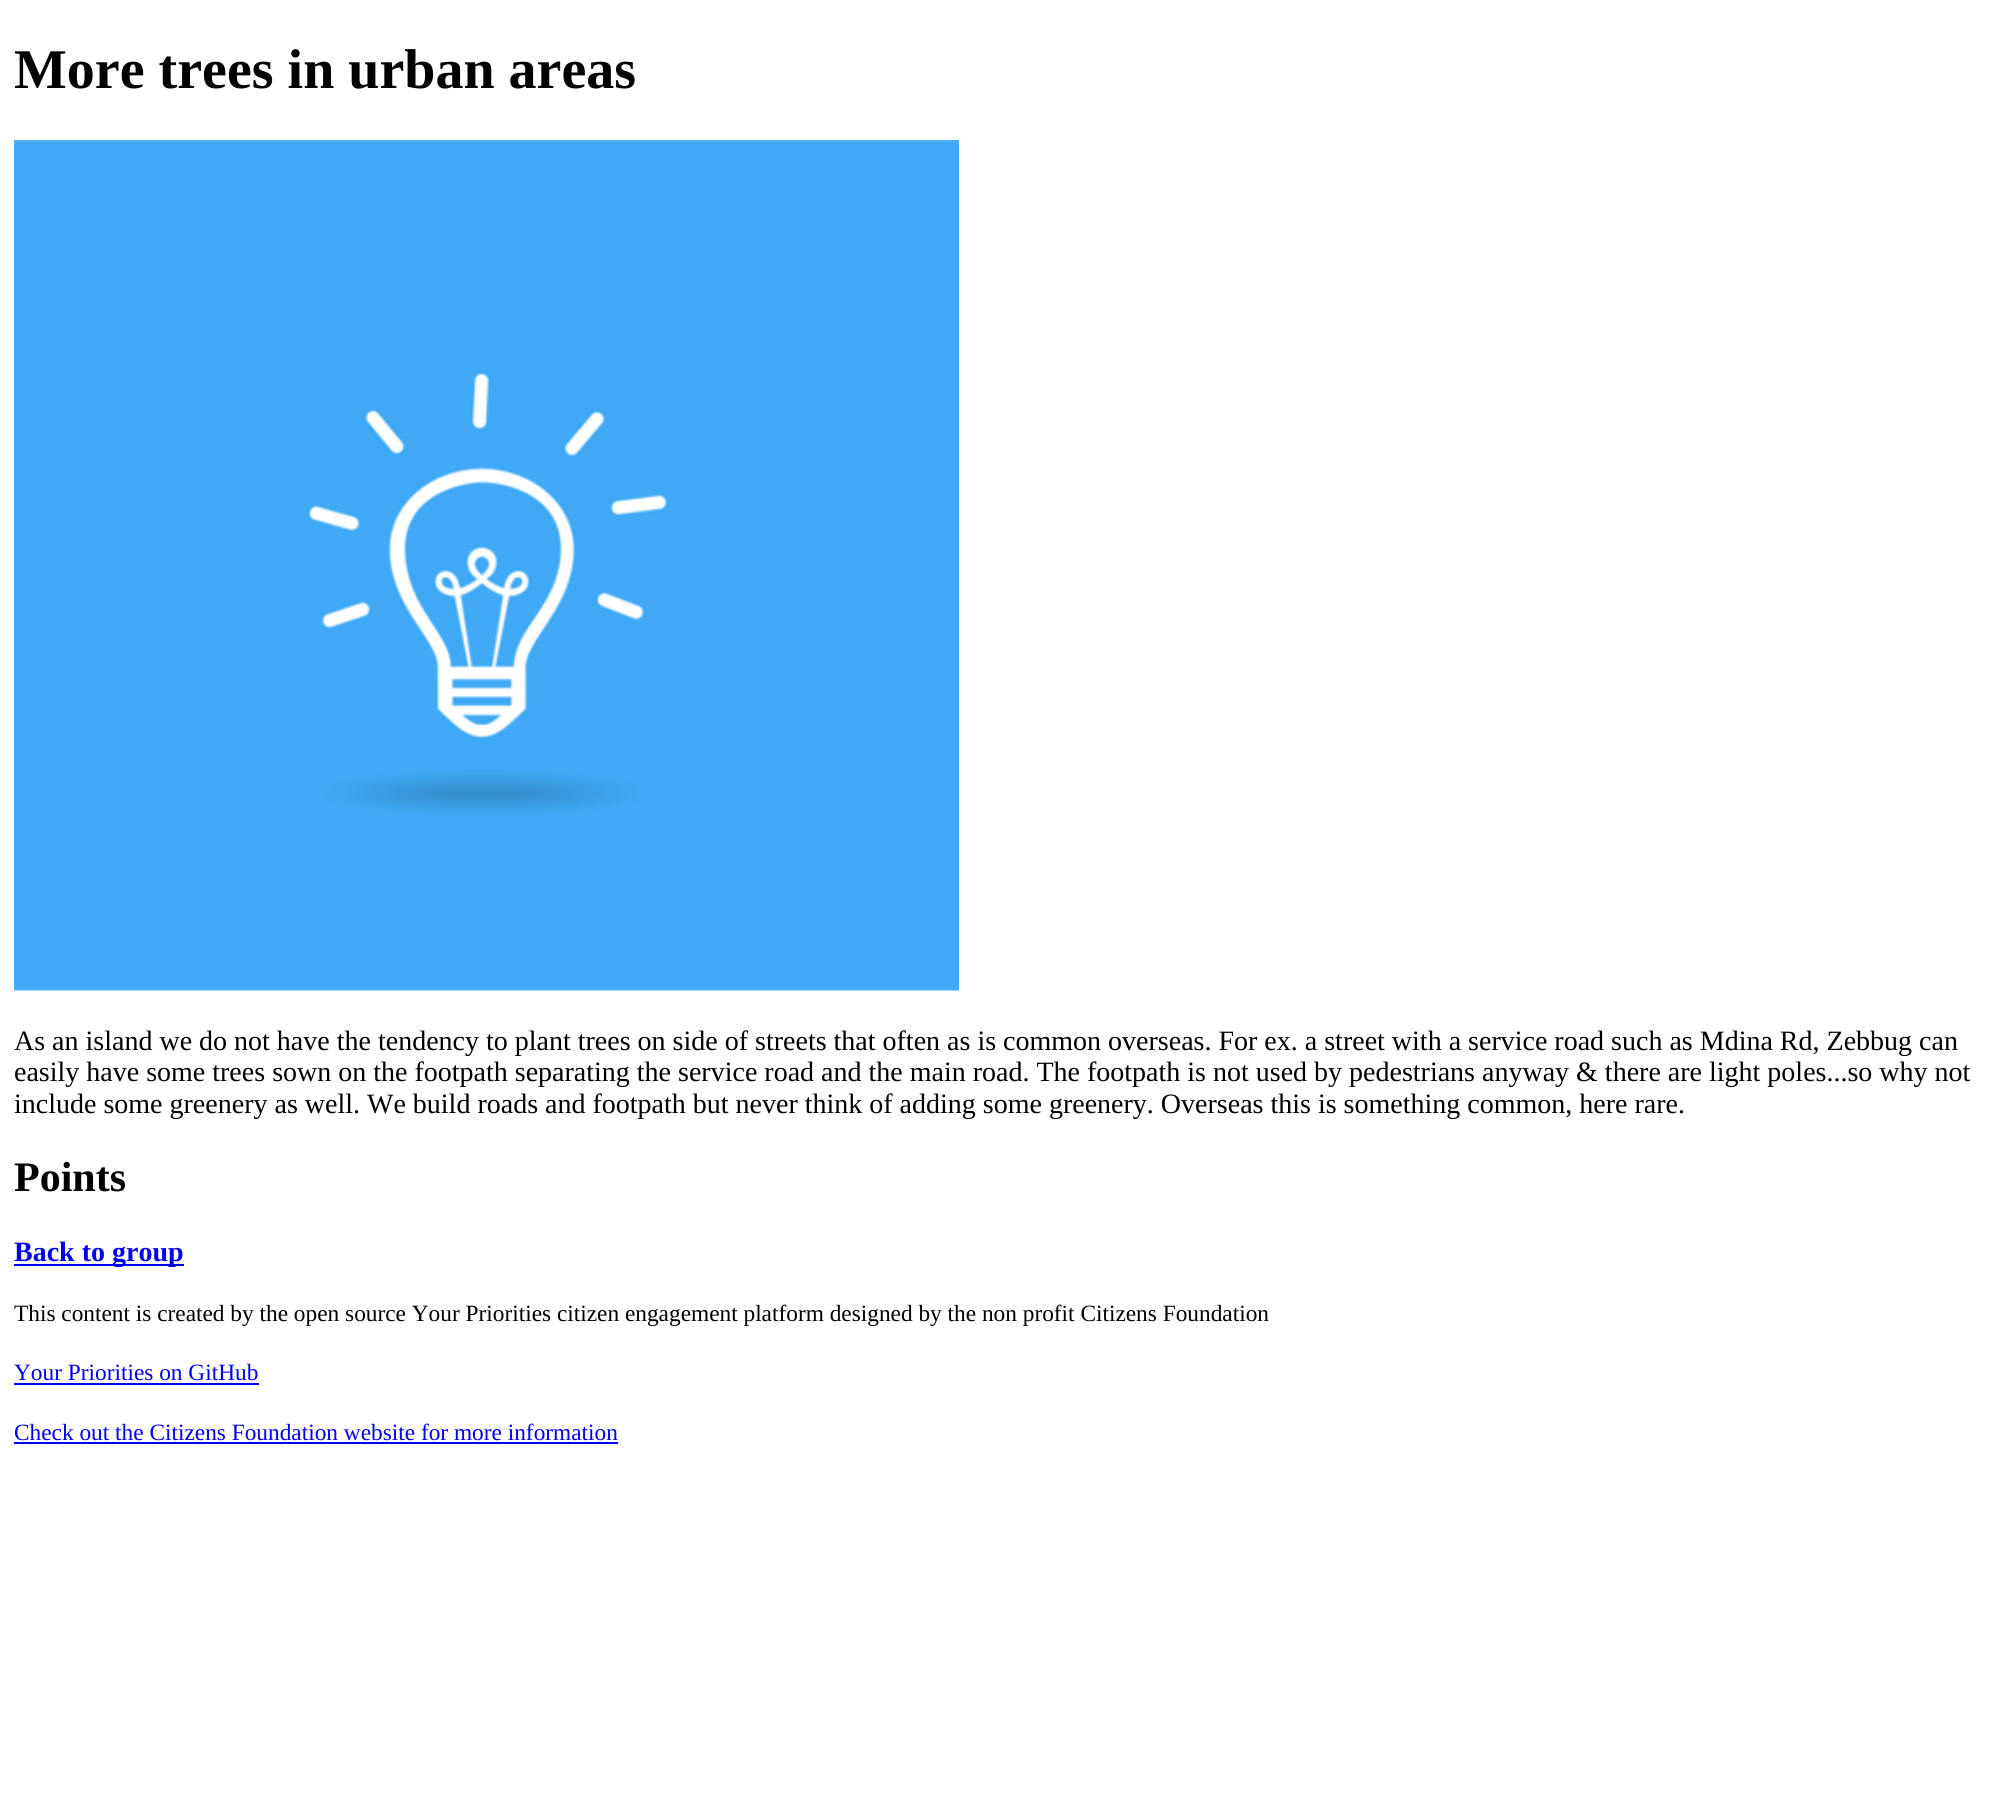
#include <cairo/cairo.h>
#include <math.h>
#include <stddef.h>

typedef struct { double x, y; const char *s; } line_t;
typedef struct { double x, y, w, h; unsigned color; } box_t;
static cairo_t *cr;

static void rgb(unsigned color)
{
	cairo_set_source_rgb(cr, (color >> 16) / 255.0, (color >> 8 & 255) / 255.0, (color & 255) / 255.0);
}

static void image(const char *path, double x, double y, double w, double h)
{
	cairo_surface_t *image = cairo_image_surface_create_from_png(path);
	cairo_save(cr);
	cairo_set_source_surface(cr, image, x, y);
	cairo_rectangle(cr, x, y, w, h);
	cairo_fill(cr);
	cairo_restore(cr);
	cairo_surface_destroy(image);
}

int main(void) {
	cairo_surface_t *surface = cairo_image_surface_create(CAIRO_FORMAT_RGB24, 2005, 1800);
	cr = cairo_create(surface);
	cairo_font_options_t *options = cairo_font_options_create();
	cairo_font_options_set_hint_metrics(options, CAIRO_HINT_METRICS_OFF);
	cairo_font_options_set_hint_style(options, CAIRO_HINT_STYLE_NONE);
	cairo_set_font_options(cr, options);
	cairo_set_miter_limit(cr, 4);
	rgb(0xffffff);
	cairo_paint(cr);
	image("img/1.png", 14, 140, 945, 851);
	{
		static const box_t items[] = {
			{14, 1264, 170, 2, 0x0000ee},
			{14, 1383, 245, 2, 0x0000ee},
			{14, 1442, 604, 2, 0x0000ee},
		};
		for (size_t i = 0; i < sizeof items / sizeof *items; i++) {
			rgb(items[i].color);
			cairo_rectangle(cr, items[i].x, items[i].y, items[i].w, items[i].h);
			cairo_fill(cr);
		}
	}
	cairo_select_font_face(cr, "Liberation Serif", CAIRO_FONT_SLANT_NORMAL, CAIRO_FONT_WEIGHT_BOLD);
	cairo_set_font_size(cr, 56);
	rgb(0x000000);
	cairo_move_to(cr, 14, 88);
	cairo_show_text(cr, "More trees in urban areas");
	cairo_select_font_face(cr, "Liberation Serif", CAIRO_FONT_SLANT_NORMAL, CAIRO_FONT_WEIGHT_NORMAL);
	cairo_set_font_size(cr, 28);
	{
		static const line_t items[] = {
			{14, 1050, "As an island we do not have the tendency to plant trees on side of streets that often as is common overseas. For ex. a street with a service road such as Mdina Rd, Zebbug can"},
			{14, 1081, "easily have some trees sown on the footpath separating the service road and the main road. The footpath is not used by pedestrians anyway & there are light poles...so why not"},
			{14, 1113, "include some greenery as well. We build roads and footpath but never think of adding some greenery. Overseas this is something common, here rare."},
		};
		for (size_t i = 0; i < sizeof items / sizeof *items; i++) {
			cairo_move_to(cr, items[i].x, items[i].y);
			cairo_show_text(cr, items[i].s);
		}
	}
	cairo_select_font_face(cr, "Liberation Serif", CAIRO_FONT_SLANT_NORMAL, CAIRO_FONT_WEIGHT_BOLD);
	cairo_set_font_size(cr, 42);
	cairo_move_to(cr, 14, 1191);
	cairo_show_text(cr, "Points");
	cairo_set_font_size(cr, 28);
	rgb(0x0000ee);
	cairo_move_to(cr, 14, 1261);
	cairo_show_text(cr, "Back to group");
	cairo_select_font_face(cr, "Liberation Serif", CAIRO_FONT_SLANT_NORMAL, CAIRO_FONT_WEIGHT_NORMAL);
	cairo_set_font_size(cr, 23.33);
	rgb(0x000000);
	cairo_move_to(cr, 14, 1321);
	cairo_show_text(cr, "This content is created by the open source Your Priorities citizen engagement platform designed by the non profit Citizens Foundation");
	rgb(0x0000ee);
	cairo_move_to(cr, 14, 1380);
	cairo_show_text(cr, "Your Priorities on GitHub");
	cairo_move_to(cr, 14, 1440);
	cairo_show_text(cr, "Check out the Citizens Foundation website for more information");
	cairo_surface_write_to_png(surface, "page.png");
	cairo_font_options_destroy(options);
	cairo_destroy(cr);
	cairo_surface_destroy(surface);
	return 0;
}
